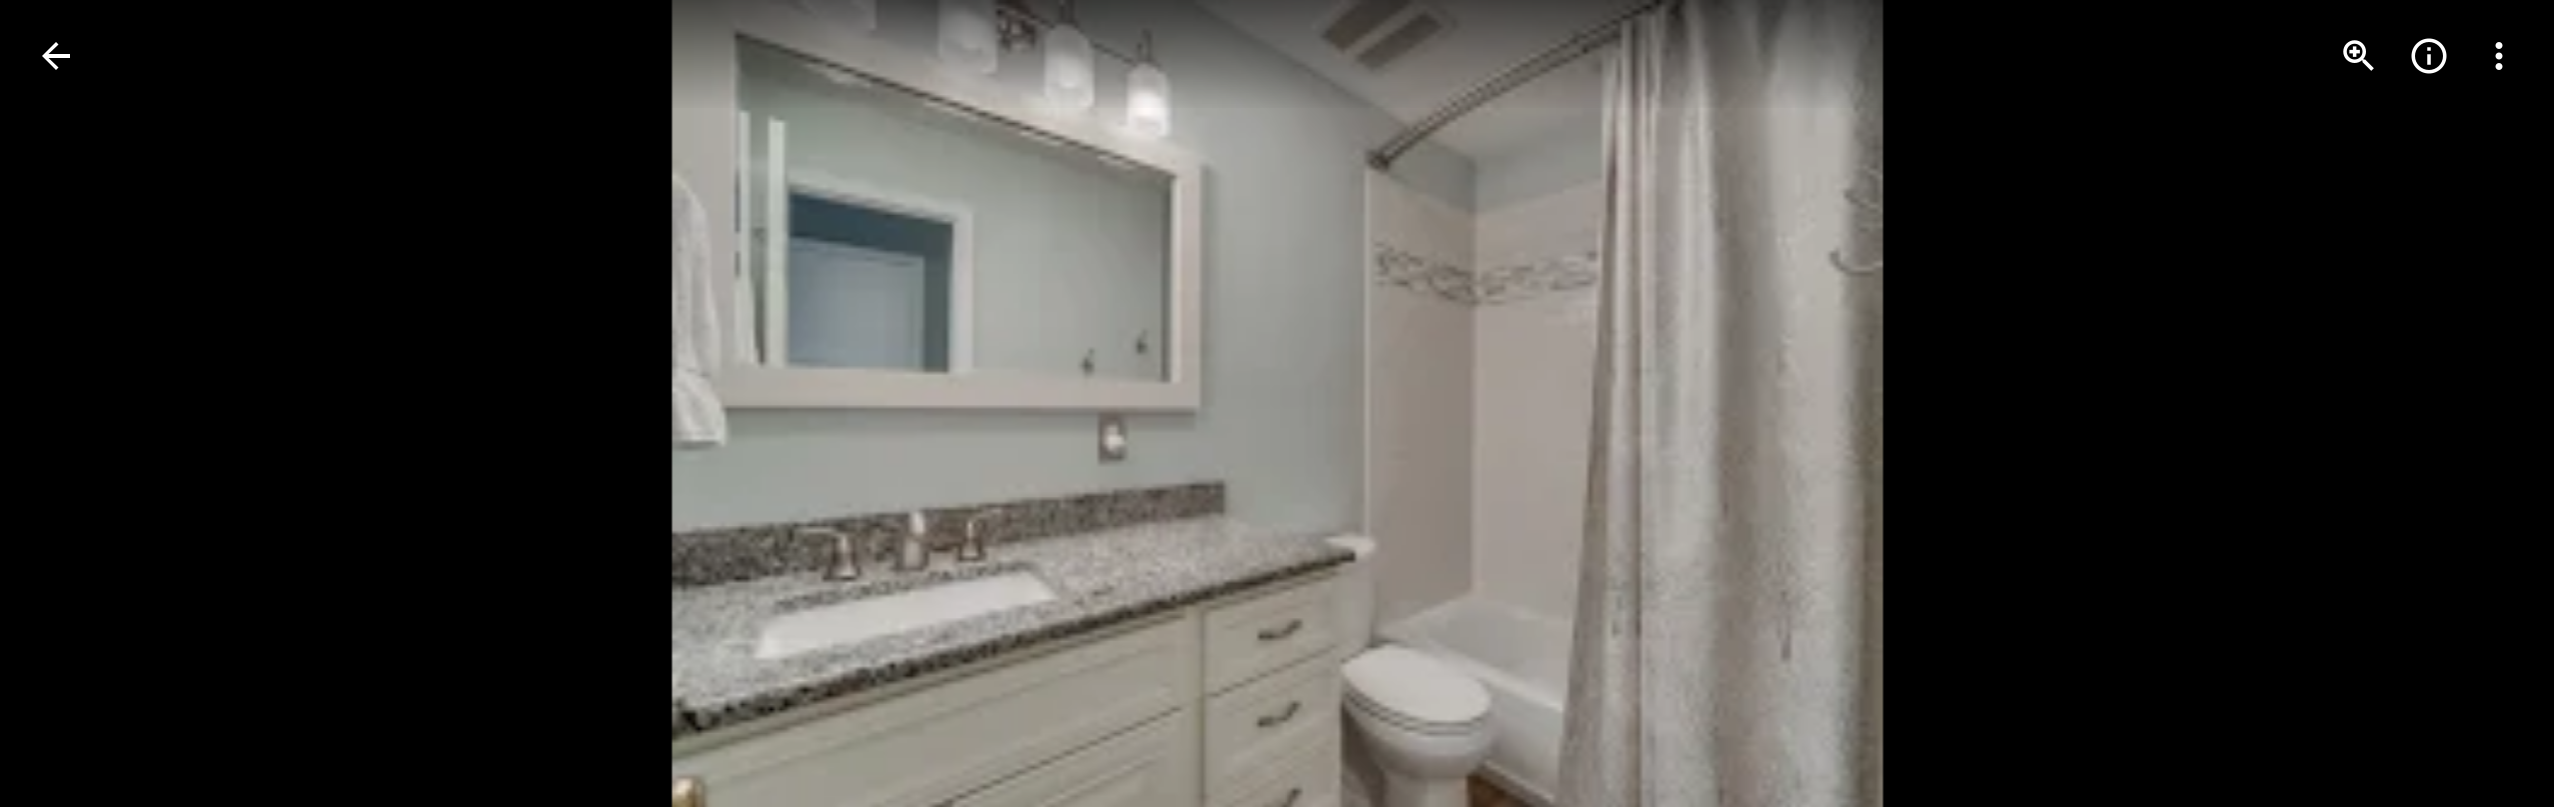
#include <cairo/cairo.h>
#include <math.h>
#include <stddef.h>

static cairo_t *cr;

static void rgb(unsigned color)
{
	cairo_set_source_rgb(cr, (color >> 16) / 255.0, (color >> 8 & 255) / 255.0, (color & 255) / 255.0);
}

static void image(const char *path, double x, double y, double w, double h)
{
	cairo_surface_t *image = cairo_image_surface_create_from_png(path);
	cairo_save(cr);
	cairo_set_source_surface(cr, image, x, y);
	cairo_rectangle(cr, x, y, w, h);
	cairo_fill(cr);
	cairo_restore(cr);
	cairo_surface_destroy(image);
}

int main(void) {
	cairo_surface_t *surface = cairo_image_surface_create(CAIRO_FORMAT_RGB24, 2554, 807);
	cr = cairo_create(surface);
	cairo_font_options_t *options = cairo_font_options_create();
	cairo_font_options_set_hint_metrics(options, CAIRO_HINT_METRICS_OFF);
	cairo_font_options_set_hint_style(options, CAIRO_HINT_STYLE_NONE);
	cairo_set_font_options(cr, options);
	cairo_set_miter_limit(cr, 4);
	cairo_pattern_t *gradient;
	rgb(0x000000);
	cairo_paint(cr);
	image("img/4.png", 671, 0, 1213, 807);
	gradient = cairo_pattern_create_linear(1278, 0, 1278, 112);
	cairo_pattern_add_color_stop_rgba(gradient, 0, 0, 0, 0, 0.6);
	cairo_pattern_add_color_stop_rgba(gradient, 1, 0, 0, 0, 0);
	cairo_set_source(cr, gradient);
	cairo_pattern_destroy(gradient);
	cairo_rectangle(cr, 671, 0, 1213, 108);
	cairo_fill(cr);
	rgb(0xffffff);
	cairo_new_path(cr);
	cairo_move_to(cr, 70, 54);
	cairo_line_to(cr, 48.5, 54);
	cairo_line_to(cr, 58.5, 44.5);
	cairo_line_to(cr, 56, 42);
	cairo_line_to(cr, 42, 56);
	cairo_line_to(cr, 56, 70);
	cairo_line_to(cr, 58.5, 67.5);
	cairo_line_to(cr, 48.5, 58);
	cairo_line_to(cr, 70, 58);
	cairo_close_path(cr);
	cairo_fill(cr);
	image("img/1.png", 2343, 40, 31, 31);
	image("img/2.png", 2411, 38, 36, 36);
	image("img/3.png", 2495, 42, 8, 28);
	cairo_surface_write_to_png(surface, "page.png");
	cairo_font_options_destroy(options);
	cairo_destroy(cr);
	cairo_surface_destroy(surface);
	return 0;
}
